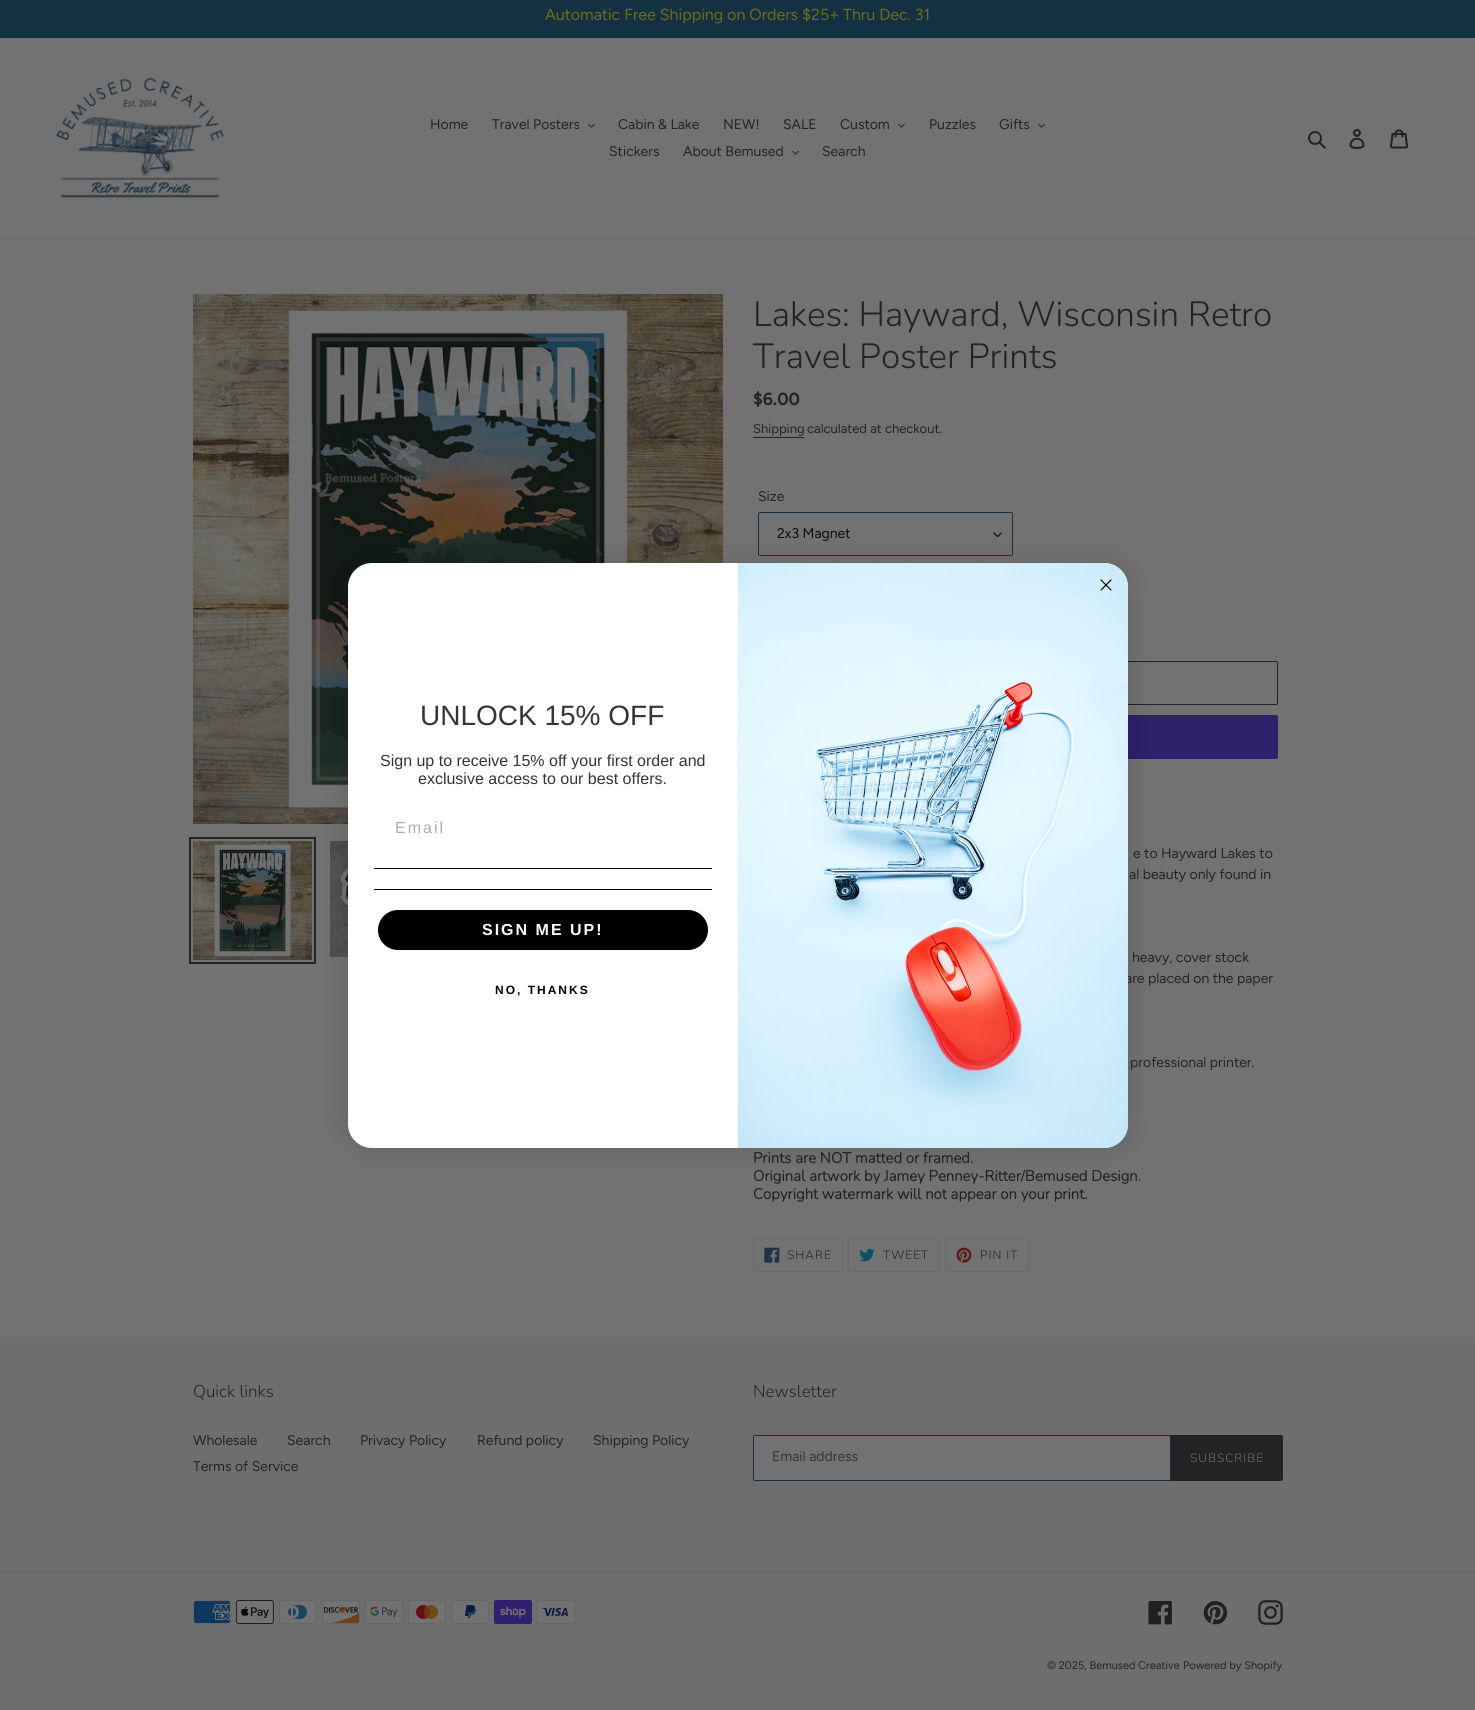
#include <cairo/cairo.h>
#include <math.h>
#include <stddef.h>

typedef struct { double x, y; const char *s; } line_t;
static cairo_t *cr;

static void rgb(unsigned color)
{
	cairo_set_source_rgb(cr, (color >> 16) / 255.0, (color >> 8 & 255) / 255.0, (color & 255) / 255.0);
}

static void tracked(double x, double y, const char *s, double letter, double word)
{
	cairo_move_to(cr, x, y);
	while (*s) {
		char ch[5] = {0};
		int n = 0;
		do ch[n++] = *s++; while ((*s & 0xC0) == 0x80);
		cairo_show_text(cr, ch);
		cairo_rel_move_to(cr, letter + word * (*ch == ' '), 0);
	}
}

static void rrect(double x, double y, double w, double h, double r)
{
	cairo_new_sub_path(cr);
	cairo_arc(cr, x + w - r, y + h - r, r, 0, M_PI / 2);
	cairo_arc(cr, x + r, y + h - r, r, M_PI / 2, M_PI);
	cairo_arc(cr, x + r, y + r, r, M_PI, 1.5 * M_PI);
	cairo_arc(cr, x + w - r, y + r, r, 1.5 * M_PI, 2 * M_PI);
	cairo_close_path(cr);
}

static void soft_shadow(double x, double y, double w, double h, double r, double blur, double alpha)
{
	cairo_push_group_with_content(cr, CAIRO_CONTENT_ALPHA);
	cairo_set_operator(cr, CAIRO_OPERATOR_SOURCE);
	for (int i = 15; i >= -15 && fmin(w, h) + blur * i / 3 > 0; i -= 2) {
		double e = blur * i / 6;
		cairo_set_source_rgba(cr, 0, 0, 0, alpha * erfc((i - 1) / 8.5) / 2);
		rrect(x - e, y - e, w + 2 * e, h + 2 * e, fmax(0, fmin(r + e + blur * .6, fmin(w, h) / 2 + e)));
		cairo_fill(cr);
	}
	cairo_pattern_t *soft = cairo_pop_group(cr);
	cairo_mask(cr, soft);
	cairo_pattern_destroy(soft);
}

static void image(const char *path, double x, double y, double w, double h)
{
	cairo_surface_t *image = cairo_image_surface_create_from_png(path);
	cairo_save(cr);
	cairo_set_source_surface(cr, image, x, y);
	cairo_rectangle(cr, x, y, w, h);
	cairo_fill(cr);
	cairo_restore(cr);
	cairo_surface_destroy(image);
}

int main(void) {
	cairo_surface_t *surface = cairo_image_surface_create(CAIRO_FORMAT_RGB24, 1475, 1710);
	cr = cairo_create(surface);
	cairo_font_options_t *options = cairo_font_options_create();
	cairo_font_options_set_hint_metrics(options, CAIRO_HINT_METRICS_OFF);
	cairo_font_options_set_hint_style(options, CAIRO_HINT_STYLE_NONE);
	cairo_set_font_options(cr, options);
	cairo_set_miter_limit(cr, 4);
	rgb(0x727272);
	cairo_paint(cr);
	rgb(0x143043);
	cairo_rectangle(cr, 0, 0, 1475, 38);
	cairo_fill(cr);
	rgb(0x6a6a6a);
	cairo_rectangle(cr, 0, 238, 1475, 1);
	cairo_fill(cr);
	image("img/1.png", 56, 77, 168, 121);
	image("img/2.png", 588, 123, 7, 5);
	image("img/2.png", 898, 123, 7, 5);
	image("img/2.png", 1038, 123, 7, 5);
	image("img/2.png", 792, 150, 7, 5);
	image("img/3.png", 1308, 131, 18, 18);
	image("img/4.png", 1349, 129, 16, 20);
	image("img/5.png", 1390, 129, 18, 20);
	image("img/6.png", 193, 294, 530, 530);
	cairo_rectangle(cr, 190, 838, 125, 125);
	rgb(0x232323);
	cairo_stroke(cr);
	image("img/7.png", 193, 841, 119, 119);
	image("img/8.png", 330, 841, 18, 116);
	cairo_rectangle(cr, 753, 437, 51, 1);
	cairo_fill(cr);
	image("img/9.png", 993, 532, 9, 6);
	rrect(758.5, 512.5, 254, 43, 1.5);
	rgb(0x143043);
	cairo_set_line_width(cr, 1);
	cairo_stroke(cr);
	rrect(758.5, 661.5, 519, 43, 1.5);
	rgb(0x232323);
	cairo_stroke(cr);
	rgb(0x2e206a);
	rrect(758, 715, 520, 44, 2);
	cairo_fill(cr);
	rrect(753.5, 1238.5, 89, 33, 1.5);
	rgb(0x6a6a6a);
	cairo_stroke(cr);
	image("img/10.png", 764, 1247, 16, 16);
	rrect(848.5, 1238.5, 91, 33, 1.5);
	cairo_stroke(cr);
	image("img/11.png", 859, 1248, 16, 14);
	rrect(945.5, 1238.5, 83, 33, 1.5);
	cairo_stroke(cr);
	image("img/12.png", 956, 1247, 16, 16);
	rgb(0x6e6e6e);
	cairo_rectangle(cr, 0, 1337, 1475, 373);
	cairo_fill(cr);
	rgb(0x727272);
	cairo_new_path(cr);
	cairo_move_to(cr, 755, 1435.5);
	cairo_line_to(cr, 1170.5, 1435.5);
	cairo_line_to(cr, 1170.5, 1480.5);
	cairo_line_to(cr, 755, 1480.5);
	cairo_curve_to(cr, 754, 1480.5, 753.5, 1480, 753.5, 1479);
	cairo_line_to(cr, 753.5, 1437);
	cairo_curve_to(cr, 753.5, 1436, 754, 1435.5, 755, 1435.5);
	cairo_close_path(cr);
	cairo_fill_preserve(cr);
	rgb(0x143043);
	cairo_stroke(cr);
	rgb(0x232323);
	cairo_new_path(cr);
	cairo_move_to(cr, 1171, 1435);
	cairo_line_to(cr, 1281, 1435);
	cairo_curve_to(cr, 1282, 1435, 1283, 1436, 1283, 1437);
	cairo_line_to(cr, 1283, 1479);
	cairo_curve_to(cr, 1283, 1480, 1282, 1481, 1281, 1481);
	cairo_line_to(cr, 1171, 1481);
	cairo_close_path(cr);
	cairo_fill(cr);
	rgb(0x646464);
	cairo_rectangle(cr, 0, 1572, 1475, 1);
	cairo_fill(cr);
	image("img/13.png", 193, 1600, 38, 24);
	image("img/14.png", 236, 1600, 38, 24);
	image("img/15.png", 279, 1600, 38, 24);
	image("img/16.png", 322, 1600, 38, 24);
	image("img/17.png", 365, 1600, 38, 24);
	image("img/18.png", 408, 1600, 38, 24);
	image("img/19.png", 451, 1600, 38, 24);
	image("img/20.png", 494, 1600, 38, 24);
	image("img/21.png", 537, 1600, 38, 24);
	image("img/22.png", 1148, 1601, 24, 24);
	image("img/23.png", 1203, 1601, 25, 24);
	image("img/24.png", 1258, 1600, 25, 25);
	rgb(0x000000);
	soft_shadow(348, 563, 780, 585, 24, 15, 0.15);
	cairo_select_font_face(cr, "Figtree", CAIRO_FONT_SLANT_NORMAL, CAIRO_FONT_WEIGHT_NORMAL);
	cairo_set_font_size(cr, 16);
	rgb(0x716c16);
	cairo_move_to(cr, 545, 20);
	cairo_show_text(cr, "Automatic Free Shipping on Orders $25+ Thru Dec. 31");
	cairo_set_font_size(cr, 14);
	rgb(0x232323);
	{
		static const line_t items[] = {
			{430, 129, "Home"},
			{492, 129, "Travel Posters"},
			{618, 129, "Cabin & Lake"},
			{723, 129, "NEW!"},
			{783, 129, "SALE"},
			{840, 129, "Custom"},
			{929, 129, "Puzzles"},
			{999, 129, "Gifts"},
			{609, 156, "Stickers"},
			{683, 156, "About Bemused"},
			{822, 156, "Search"},
		};
		for (size_t i = 0; i < sizeof items / sizeof *items; i++) {
			cairo_move_to(cr, items[i].x, items[i].y);
			cairo_show_text(cr, items[i].s);
		}
	}
	cairo_select_font_face(cr, "Nunito Light", CAIRO_FONT_SLANT_NORMAL, CAIRO_FONT_WEIGHT_NORMAL);
	cairo_set_font_size(cr, 35);
	cairo_move_to(cr, 753, 326);
	cairo_show_text(cr, "Lakes: Hayward, Wisconsin Retro");
	cairo_move_to(cr, 753, 368);
	cairo_show_text(cr, "Travel Poster Prints");
	cairo_select_font_face(cr, "Figtree", CAIRO_FONT_SLANT_NORMAL, CAIRO_FONT_WEIGHT_BOLD);
	cairo_set_font_size(cr, 17.5);
	cairo_move_to(cr, 753, 405);
	cairo_show_text(cr, "$6.00");
	cairo_select_font_face(cr, "Figtree", CAIRO_FONT_SLANT_NORMAL, CAIRO_FONT_WEIGHT_NORMAL);
	cairo_set_font_size(cr, 13);
	cairo_move_to(cr, 753, 433);
	cairo_show_text(cr, "Shipping");
	cairo_move_to(cr, 807, 433);
	cairo_show_text(cr, "calculated at checkout.");
	cairo_set_font_size(cr, 14);
	cairo_move_to(cr, 758, 501);
	cairo_show_text(cr, "Size");
	rgb(0x0c0c0c);
	cairo_move_to(cr, 777, 538);
	cairo_show_text(cr, "2x3 Magnet");
	rgb(0x232323);
	{
		static const line_t items[] = {
			{1133, 858, "e to Hayward Lakes to"},
			{1129, 879, "al beauty only found in"},
			{1132, 962, "heavy, cover stock"},
			{1125, 983, "are placed on the paper"},
			{1130, 1067, "professional printer."},
		};
		for (size_t i = 0; i < sizeof items / sizeof *items; i++) {
			cairo_move_to(cr, items[i].x, items[i].y);
			cairo_show_text(cr, items[i].s);
		}
	}
	cairo_select_font_face(cr, "Nunito", CAIRO_FONT_SLANT_NORMAL, CAIRO_FONT_WEIGHT_BOLD);
	cairo_set_font_size(cr, 15);
	{
		static const line_t items[] = {
			{753, 1163, "Prints are NOT matted or framed."},
			{753, 1181, "Original artwork by Jamey Penney-Ritter/Bemused Design."},
			{753, 1199, "Copyright watermark will not appear on your print."},
		};
		for (size_t i = 0; i < sizeof items / sizeof *items; i++) {
			cairo_move_to(cr, items[i].x, items[i].y);
			cairo_show_text(cr, items[i].s);
		}
	}
	cairo_select_font_face(cr, "Nunito Light", CAIRO_FONT_SLANT_NORMAL, CAIRO_FONT_WEIGHT_NORMAL);
	cairo_set_font_size(cr, 12);
	{
		static const line_t items[] = {
			{787, 1259, "SHARE"},
			{883, 1259, "TWEET"},
			{980, 1259, "PIN IT"},
		};
		for (size_t i = 0; i < sizeof items / sizeof *items; i++) {
			tracked(items[i].x, items[i].y, items[i].s, 1, 0);
		}
	}
	cairo_set_font_size(cr, 17);
	cairo_move_to(cr, 193, 1397);
	cairo_show_text(cr, "Quick links");
	cairo_select_font_face(cr, "Figtree", CAIRO_FONT_SLANT_NORMAL, CAIRO_FONT_WEIGHT_NORMAL);
	cairo_set_font_size(cr, 14);
	{
		static const line_t items[] = {
			{193, 1445, "Wholesale"},
			{287, 1445, "Search"},
			{360, 1445, "Privacy Policy"},
			{477, 1445, "Refund policy"},
			{593, 1445, "Shipping Policy"},
			{193, 1471, "Terms of Service"},
		};
		for (size_t i = 0; i < sizeof items / sizeof *items; i++) {
			cairo_move_to(cr, items[i].x, items[i].y);
			cairo_show_text(cr, items[i].s);
		}
	}
	cairo_select_font_face(cr, "Nunito Light", CAIRO_FONT_SLANT_NORMAL, CAIRO_FONT_WEIGHT_NORMAL);
	cairo_set_font_size(cr, 17);
	cairo_move_to(cr, 753, 1397);
	cairo_show_text(cr, "Newsletter");
	cairo_select_font_face(cr, "Figtree", CAIRO_FONT_SLANT_NORMAL, CAIRO_FONT_WEIGHT_NORMAL);
	cairo_set_font_size(cr, 14);
	rgb(0x353535);
	cairo_move_to(cr, 772, 1461);
	cairo_show_text(cr, "Email address");
	cairo_select_font_face(cr, "Nunito Light", CAIRO_FONT_SLANT_NORMAL, CAIRO_FONT_WEIGHT_NORMAL);
	cairo_set_font_size(cr, 12);
	rgb(0x727272);
	tracked(1190, 1462, "SUBSCRIBE", 1, 0);
	cairo_select_font_face(cr, "Figtree", CAIRO_FONT_SLANT_NORMAL, CAIRO_FONT_WEIGHT_NORMAL);
	cairo_set_font_size(cr, 11);
	rgb(0x232323);
	cairo_move_to(cr, 1047, 1669);
	cairo_show_text(cr, "© 2025, Bemused Creative");
	cairo_move_to(cr, 1183, 1669);
	cairo_show_text(cr, "Powered by Shopify");
	rgb(0xffffff);
	rrect(348, 563, 780, 585, 24);
	cairo_fill(cr);
	cairo_select_font_face(cr, "Liberation Sans", CAIRO_FONT_SLANT_NORMAL, CAIRO_FONT_WEIGHT_NORMAL);
	cairo_set_font_size(cr, 28);
	rgb(0x353535);
	cairo_move_to(cr, 420, 725);
	cairo_show_text(cr, "UNLOCK 15% OFF");
	cairo_set_font_size(cr, 16);
	cairo_move_to(cr, 380, 766);
	cairo_show_text(cr, "Sign up to receive 15% off your first order and");
	cairo_move_to(cr, 418, 784);
	cairo_show_text(cr, "exclusive access to our best offers.");
	rgb(0xadadad);
	tracked(395, 833, "Email", 2, 0);
	image("img/25.png", 374, 868, 338, 1);
	image("img/25.png", 374, 889, 338, 1);
	rgb(0x000000);
	rrect(378, 910, 330, 40, 20);
	cairo_fill(cr);
	cairo_select_font_face(cr, "Liberation Sans", CAIRO_FONT_SLANT_NORMAL, CAIRO_FONT_WEIGHT_BOLD);
	rgb(0xffffff);
	tracked(482, 935, "SIGN ME UP!", 2, 0);
	cairo_set_font_size(cr, 12);
	rgb(0x000000);
	tracked(495, 994, "NO, THANKS", 2, 0);
	image("img/26.png", 738, 563, 390, 585);
	cairo_new_path(cr);
	cairo_move_to(cr, 1101, 580);
	cairo_line_to(cr, 1111, 590);
	cairo_move_to(cr, 1101, 590);
	cairo_line_to(cr, 1111, 580);
	cairo_close_path(cr);
	cairo_set_line_width(cr, 1.2);
	cairo_set_line_cap(cr, CAIRO_LINE_CAP_ROUND);
	cairo_set_line_join(cr, CAIRO_LINE_JOIN_ROUND);
	cairo_stroke(cr);
	cairo_surface_write_to_png(surface, "page.png");
	cairo_font_options_destroy(options);
	cairo_destroy(cr);
	cairo_surface_destroy(surface);
	return 0;
}
